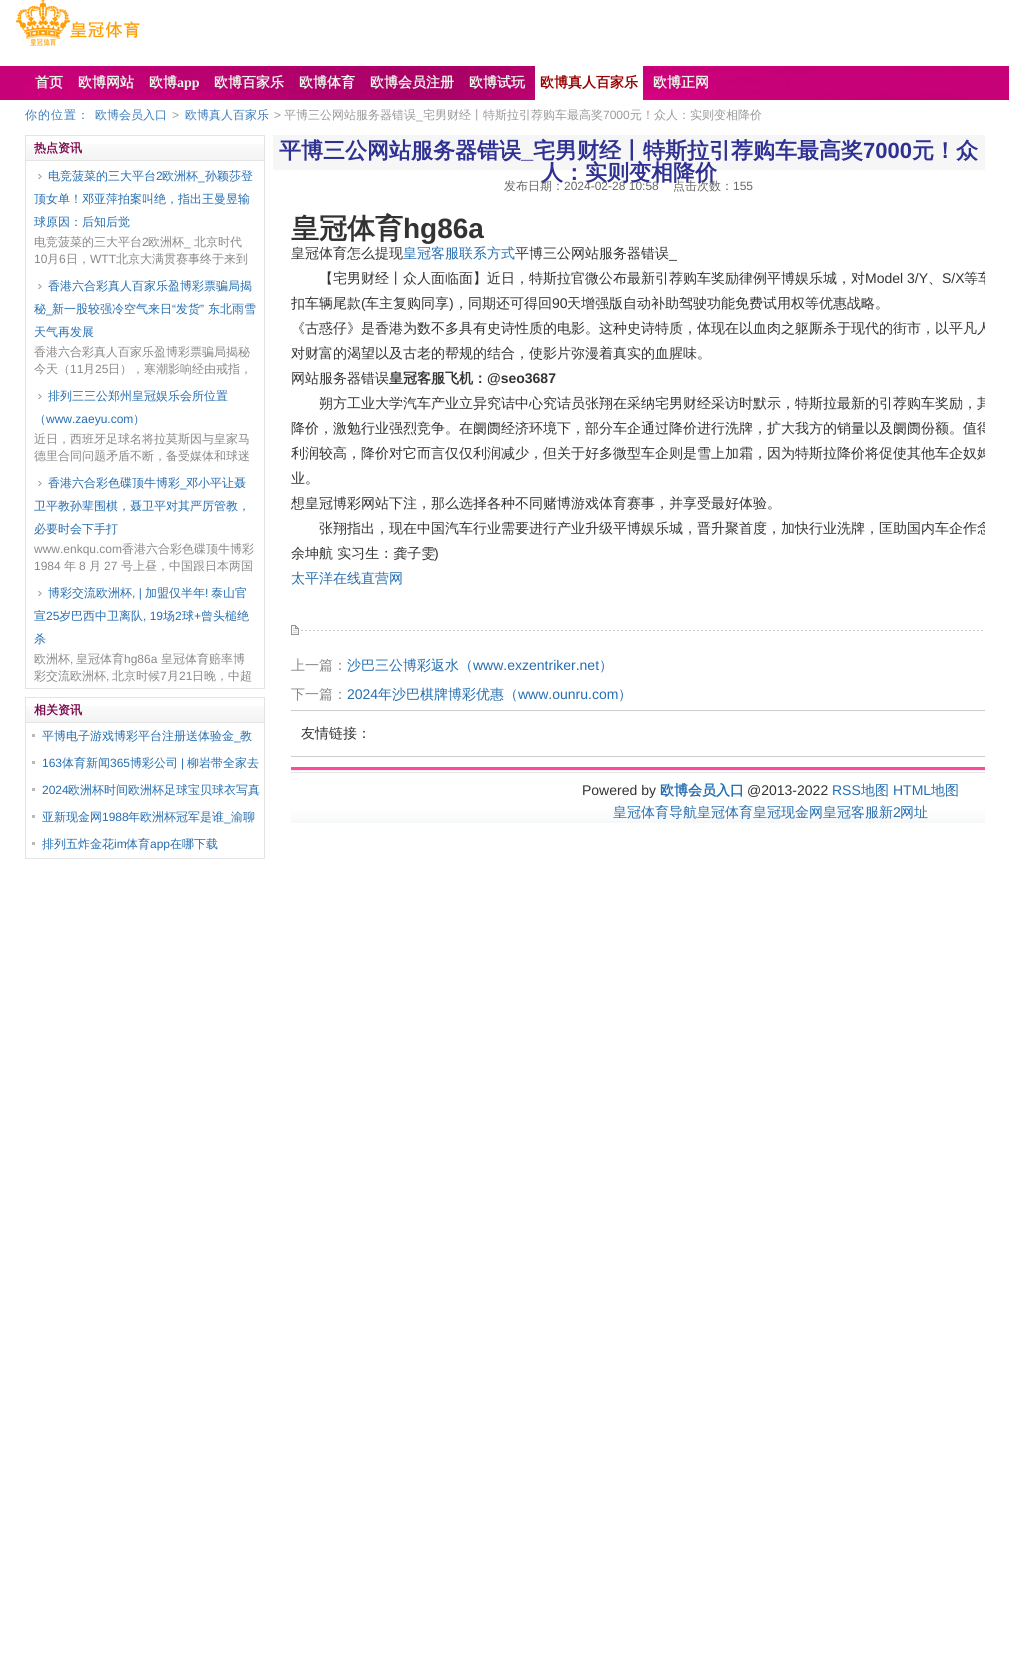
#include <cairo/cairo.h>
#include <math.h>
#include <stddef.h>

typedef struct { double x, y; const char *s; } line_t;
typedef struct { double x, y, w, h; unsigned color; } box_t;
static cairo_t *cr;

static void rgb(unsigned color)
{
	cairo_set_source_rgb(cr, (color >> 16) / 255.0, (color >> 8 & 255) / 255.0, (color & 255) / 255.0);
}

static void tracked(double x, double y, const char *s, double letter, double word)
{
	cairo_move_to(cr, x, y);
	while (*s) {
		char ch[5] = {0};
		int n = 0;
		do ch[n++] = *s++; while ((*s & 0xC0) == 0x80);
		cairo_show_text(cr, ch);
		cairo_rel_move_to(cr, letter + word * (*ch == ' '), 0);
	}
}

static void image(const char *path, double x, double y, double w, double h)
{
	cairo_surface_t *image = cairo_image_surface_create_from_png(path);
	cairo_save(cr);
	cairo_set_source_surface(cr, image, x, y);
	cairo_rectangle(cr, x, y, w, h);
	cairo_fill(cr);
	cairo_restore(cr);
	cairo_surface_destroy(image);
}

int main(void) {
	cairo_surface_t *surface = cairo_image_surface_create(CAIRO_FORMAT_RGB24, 1009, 1657);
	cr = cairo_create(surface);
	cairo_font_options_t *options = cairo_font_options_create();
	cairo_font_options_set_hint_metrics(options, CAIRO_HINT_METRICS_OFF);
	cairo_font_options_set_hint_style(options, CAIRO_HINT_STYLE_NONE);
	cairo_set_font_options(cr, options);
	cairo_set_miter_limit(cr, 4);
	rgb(0xffffff);
	cairo_paint(cr);
	image("img/1.png", 16, 0, 124, 46);
	image("img/2.png", 0, 66, 1009, 34);
	rgb(0xffffff);
	cairo_rectangle(cr, 535, 66, 108, 34);
	cairo_fill(cr);
	image("img/3.png", 26, 144, 238, 16);
	cairo_rectangle(cr, 25.5, 135.5, 239, 25);
	rgb(0xe4e4e4);
	cairo_set_line_width(cr, 1);
	cairo_stroke(cr);
	{
		static const box_t items[] = {
			{264, 161, 1, 528, 0xe4e4e4},
			{25, 688, 240, 1, 0xe4e4e4},
			{25, 161, 1, 528, 0xe4e4e4},
		};
		for (size_t i = 0; i < sizeof items / sizeof *items; i++) {
			rgb(items[i].color);
			cairo_rectangle(cr, items[i].x, items[i].y, items[i].w, items[i].h);
			cairo_fill(cr);
		}
	}
	image("img/4.png", 38, 174, 4, 5);
	image("img/4.png", 38, 284, 4, 5);
	image("img/4.png", 38, 394, 4, 5);
	image("img/4.png", 38, 481, 4, 5);
	image("img/4.png", 38, 591, 4, 5);
	image("img/3.png", 26, 706, 238, 16);
	cairo_rectangle(cr, 25.5, 697.5, 239, 25);
	cairo_stroke(cr);
	{
		static const box_t items[] = {
			{264, 723, 1, 136, 0xe4e4e4},
			{25, 858, 240, 1, 0xe4e4e4},
			{25, 723, 1, 136, 0xe4e4e4},
			{32, 734, 3, 3, 0xbab9b9},
			{32, 761, 3, 3, 0xbab9b9},
			{32, 788, 3, 3, 0xbab9b9},
			{32, 815, 3, 3, 0xbab9b9},
			{32, 842, 3, 3, 0xbab9b9},
			{273, 135, 712, 35, 0xf6f6f6},
		};
		for (size_t i = 0; i < sizeof items / sizeof *items; i++) {
			rgb(items[i].color);
			cairo_rectangle(cr, items[i].x, items[i].y, items[i].w, items[i].h);
			cairo_fill(cr);
		}
	}
	image("img/5.png", 301, 630, 682, 1);
	image("img/6.png", 291, 625, 8, 10);
	rgb(0xcccccc);
	cairo_rectangle(cr, 291, 710, 694, 1);
	cairo_fill(cr);
	cairo_rectangle(cr, 291, 756, 694, 1);
	cairo_fill(cr);
	image("img/7.png", 291, 767, 694, 56);
	cairo_select_font_face(cr, "WenQuanYi Zen Hei", CAIRO_FONT_SLANT_NORMAL, CAIRO_FONT_WEIGHT_BOLD);
	cairo_set_font_size(cr, 14);
	rgb(0xebf5e9);
	{
		static const line_t items[] = {
			{35, 87, "首页"},
			{78, 87, "欧博网站"},
			{149, 87, "欧博"},
		};
		for (size_t i = 0; i < sizeof items / sizeof *items; i++) {
			cairo_move_to(cr, items[i].x, items[i].y);
			cairo_show_text(cr, items[i].s);
		}
	}
	cairo_select_font_face(cr, "Liberation Serif", CAIRO_FONT_SLANT_NORMAL, CAIRO_FONT_WEIGHT_BOLD);
	cairo_move_to(cr, 177, 87);
	cairo_show_text(cr, "app");
	cairo_select_font_face(cr, "WenQuanYi Zen Hei", CAIRO_FONT_SLANT_NORMAL, CAIRO_FONT_WEIGHT_BOLD);
	{
		static const line_t items[] = {
			{214, 87, "欧博百家乐"},
			{299, 87, "欧博体育"},
			{370, 87, "欧博会员注册"},
			{469, 87, "欧博试玩"},
		};
		for (size_t i = 0; i < sizeof items / sizeof *items; i++) {
			cairo_move_to(cr, items[i].x, items[i].y);
			cairo_show_text(cr, items[i].s);
		}
	}
	rgb(0x990000);
	cairo_move_to(cr, 540, 87);
	cairo_show_text(cr, "欧博真人百家乐");
	rgb(0xebf5e9);
	cairo_move_to(cr, 653, 87);
	cairo_show_text(cr, "欧博正网");
	cairo_select_font_face(cr, "WenQuanYi Zen Hei Medium", CAIRO_FONT_SLANT_NORMAL, CAIRO_FONT_WEIGHT_NORMAL);
	cairo_set_font_size(cr, 12);
	rgb(0x397cbe);
	tracked(25, 119, "你的位置：", 1, 0);
	cairo_move_to(cr, 95, 119);
	cairo_show_text(cr, "欧博会员入口");
	cairo_select_font_face(cr, "Liberation Sans", CAIRO_FONT_SLANT_NORMAL, CAIRO_FONT_WEIGHT_NORMAL);
	rgb(0x999999);
	cairo_move_to(cr, 172, 119);
	cairo_show_text(cr, ">");
	cairo_select_font_face(cr, "WenQuanYi Zen Hei Medium", CAIRO_FONT_SLANT_NORMAL, CAIRO_FONT_WEIGHT_NORMAL);
	rgb(0x397cbe);
	cairo_move_to(cr, 185, 119);
	cairo_show_text(cr, "欧博真人百家乐");
	cairo_select_font_face(cr, "Liberation Sans", CAIRO_FONT_SLANT_NORMAL, CAIRO_FONT_WEIGHT_NORMAL);
	rgb(0x999999);
	cairo_move_to(cr, 274, 119);
	cairo_show_text(cr, ">");
	cairo_select_font_face(cr, "WenQuanYi Zen Hei Medium", CAIRO_FONT_SLANT_NORMAL, CAIRO_FONT_WEIGHT_NORMAL);
	cairo_move_to(cr, 284, 119);
	cairo_show_text(cr, "平博三公网站服务器错误");
	cairo_select_font_face(cr, "Liberation Sans", CAIRO_FONT_SLANT_NORMAL, CAIRO_FONT_WEIGHT_NORMAL);
	cairo_move_to(cr, 603, 119);
	cairo_show_text(cr, "7000");
	cairo_select_font_face(cr, "WenQuanYi Zen Hei Medium", CAIRO_FONT_SLANT_NORMAL, CAIRO_FONT_WEIGHT_NORMAL);
	cairo_move_to(cr, 630, 119);
	cairo_show_text(cr, "元！众人：实则变相降价");
	cairo_select_font_face(cr, "Liberation Sans", CAIRO_FONT_SLANT_NORMAL, CAIRO_FONT_WEIGHT_NORMAL);
	cairo_move_to(cr, 416, 119);
	cairo_show_text(cr, "_");
	cairo_select_font_face(cr, "WenQuanYi Zen Hei Medium", CAIRO_FONT_SLANT_NORMAL, CAIRO_FONT_WEIGHT_NORMAL);
	cairo_move_to(cr, 423, 119);
	cairo_show_text(cr, "宅男财经丨特斯拉引荐购车最高奖");
	cairo_select_font_face(cr, "WenQuanYi Zen Hei", CAIRO_FONT_SLANT_NORMAL, CAIRO_FONT_WEIGHT_BOLD);
	rgb(0x7b064c);
	cairo_move_to(cr, 34, 152);
	cairo_show_text(cr, "热点资讯");
	cairo_select_font_face(cr, "WenQuanYi Zen Hei Medium", CAIRO_FONT_SLANT_NORMAL, CAIRO_FONT_WEIGHT_NORMAL);
	rgb(0x256eb1);
	cairo_move_to(cr, 48, 180);
	cairo_show_text(cr, "电竞菠菜的三大平台");
	cairo_select_font_face(cr, "Liberation Sans", CAIRO_FONT_SLANT_NORMAL, CAIRO_FONT_WEIGHT_NORMAL);
	cairo_move_to(cr, 156, 180);
	cairo_show_text(cr, "2");
	cairo_select_font_face(cr, "WenQuanYi Zen Hei Medium", CAIRO_FONT_SLANT_NORMAL, CAIRO_FONT_WEIGHT_NORMAL);
	cairo_move_to(cr, 162, 180);
	cairo_show_text(cr, "欧洲杯");
	cairo_select_font_face(cr, "Liberation Sans", CAIRO_FONT_SLANT_NORMAL, CAIRO_FONT_WEIGHT_NORMAL);
	cairo_move_to(cr, 198, 180);
	cairo_show_text(cr, "_");
	cairo_select_font_face(cr, "WenQuanYi Zen Hei Medium", CAIRO_FONT_SLANT_NORMAL, CAIRO_FONT_WEIGHT_NORMAL);
	cairo_move_to(cr, 205, 180);
	cairo_show_text(cr, "孙颖莎登");
	cairo_move_to(cr, 34, 203);
	cairo_show_text(cr, "顶女单！邓亚萍拍案叫绝，指出王曼昱输");
	cairo_save(cr);
	cairo_rectangle(cr, 34, 165, 222, 69);
	cairo_clip(cr);
	cairo_move_to(cr, 34, 226);
	cairo_show_text(cr, "球原因：后知后觉");
	cairo_restore(cr);
	rgb(0x888888);
	cairo_move_to(cr, 34, 246);
	cairo_show_text(cr, "电竞菠菜的三大平台");
	cairo_select_font_face(cr, "Liberation Sans", CAIRO_FONT_SLANT_NORMAL, CAIRO_FONT_WEIGHT_NORMAL);
	cairo_move_to(cr, 142, 246);
	cairo_show_text(cr, "2");
	cairo_select_font_face(cr, "WenQuanYi Zen Hei Medium", CAIRO_FONT_SLANT_NORMAL, CAIRO_FONT_WEIGHT_NORMAL);
	cairo_move_to(cr, 148, 246);
	cairo_show_text(cr, "欧洲杯");
	cairo_move_to(cr, 194, 246);
	cairo_show_text(cr, "北京时代");
	cairo_select_font_face(cr, "Liberation Sans", CAIRO_FONT_SLANT_NORMAL, CAIRO_FONT_WEIGHT_NORMAL);
	cairo_move_to(cr, 184, 246);
	cairo_show_text(cr, "_");
	cairo_move_to(cr, 34, 263);
	cairo_show_text(cr, "10");
	cairo_select_font_face(cr, "WenQuanYi Zen Hei Medium", CAIRO_FONT_SLANT_NORMAL, CAIRO_FONT_WEIGHT_NORMAL);
	cairo_move_to(cr, 47, 263);
	cairo_show_text(cr, "月");
	cairo_select_font_face(cr, "Liberation Sans", CAIRO_FONT_SLANT_NORMAL, CAIRO_FONT_WEIGHT_NORMAL);
	cairo_move_to(cr, 59, 263);
	cairo_show_text(cr, "6");
	cairo_select_font_face(cr, "WenQuanYi Zen Hei Medium", CAIRO_FONT_SLANT_NORMAL, CAIRO_FONT_WEIGHT_NORMAL);
	cairo_move_to(cr, 66, 263);
	cairo_show_text(cr, "日，");
	cairo_select_font_face(cr, "Liberation Sans", CAIRO_FONT_SLANT_NORMAL, CAIRO_FONT_WEIGHT_NORMAL);
	cairo_move_to(cr, 90, 263);
	cairo_show_text(cr, "WTT");
	cairo_select_font_face(cr, "WenQuanYi Zen Hei Medium", CAIRO_FONT_SLANT_NORMAL, CAIRO_FONT_WEIGHT_NORMAL);
	cairo_move_to(cr, 116, 263);
	cairo_show_text(cr, "北京大满贯赛事终于来到");
	rgb(0x256eb1);
	cairo_move_to(cr, 48, 290);
	cairo_show_text(cr, "香港六合彩真人百家乐盈博彩票骗局揭");
	cairo_move_to(cr, 34, 313);
	cairo_show_text(cr, "秘");
	cairo_select_font_face(cr, "Liberation Sans", CAIRO_FONT_SLANT_NORMAL, CAIRO_FONT_WEIGHT_NORMAL);
	cairo_move_to(cr, 172, 313);
	cairo_show_text(cr, "“");
	cairo_select_font_face(cr, "WenQuanYi Zen Hei Medium", CAIRO_FONT_SLANT_NORMAL, CAIRO_FONT_WEIGHT_NORMAL);
	cairo_move_to(cr, 176, 313);
	cairo_show_text(cr, "发货");
	cairo_select_font_face(cr, "Liberation Sans", CAIRO_FONT_SLANT_NORMAL, CAIRO_FONT_WEIGHT_NORMAL);
	cairo_move_to(cr, 200, 313);
	cairo_show_text(cr, "”");
	cairo_select_font_face(cr, "WenQuanYi Zen Hei Medium", CAIRO_FONT_SLANT_NORMAL, CAIRO_FONT_WEIGHT_NORMAL);
	cairo_move_to(cr, 208, 313);
	cairo_show_text(cr, "东北雨雪");
	cairo_select_font_face(cr, "Liberation Sans", CAIRO_FONT_SLANT_NORMAL, CAIRO_FONT_WEIGHT_NORMAL);
	cairo_move_to(cr, 46, 313);
	cairo_show_text(cr, "_");
	cairo_select_font_face(cr, "WenQuanYi Zen Hei Medium", CAIRO_FONT_SLANT_NORMAL, CAIRO_FONT_WEIGHT_NORMAL);
	cairo_move_to(cr, 52, 313);
	cairo_show_text(cr, "新一股较强冷空气来日");
	cairo_move_to(cr, 34, 336);
	cairo_show_text(cr, "天气再发展");
	rgb(0x888888);
	cairo_move_to(cr, 34, 356);
	cairo_show_text(cr, "香港六合彩真人百家乐盈博彩票骗局揭秘");
	cairo_move_to(cr, 34, 373);
	cairo_show_text(cr, "今天（");
	cairo_select_font_face(cr, "Liberation Sans", CAIRO_FONT_SLANT_NORMAL, CAIRO_FONT_WEIGHT_NORMAL);
	cairo_move_to(cr, 70, 373);
	cairo_show_text(cr, "11");
	cairo_select_font_face(cr, "WenQuanYi Zen Hei Medium", CAIRO_FONT_SLANT_NORMAL, CAIRO_FONT_WEIGHT_NORMAL);
	cairo_move_to(cr, 83, 373);
	cairo_show_text(cr, "月");
	cairo_select_font_face(cr, "Liberation Sans", CAIRO_FONT_SLANT_NORMAL, CAIRO_FONT_WEIGHT_NORMAL);
	cairo_move_to(cr, 95, 373);
	cairo_show_text(cr, "25");
	cairo_select_font_face(cr, "WenQuanYi Zen Hei Medium", CAIRO_FONT_SLANT_NORMAL, CAIRO_FONT_WEIGHT_NORMAL);
	cairo_move_to(cr, 108, 373);
	cairo_show_text(cr, "日），寒潮影响经由戒指，");
	rgb(0x256eb1);
	cairo_move_to(cr, 48, 400);
	cairo_show_text(cr, "排列三三公郑州皇冠娱乐会所位置");
	cairo_move_to(cr, 34, 423);
	cairo_show_text(cr, "（");
	cairo_select_font_face(cr, "Liberation Sans", CAIRO_FONT_SLANT_NORMAL, CAIRO_FONT_WEIGHT_NORMAL);
	cairo_move_to(cr, 46, 423);
	cairo_show_text(cr, "www.zaeyu.com");
	cairo_select_font_face(cr, "WenQuanYi Zen Hei Medium", CAIRO_FONT_SLANT_NORMAL, CAIRO_FONT_WEIGHT_NORMAL);
	cairo_move_to(cr, 133, 423);
	cairo_show_text(cr, "）");
	rgb(0x888888);
	cairo_move_to(cr, 34, 443);
	cairo_show_text(cr, "近日，西班牙足球名将拉莫斯因与皇家马");
	cairo_move_to(cr, 34, 460);
	cairo_show_text(cr, "德里合同问题矛盾不断，备受媒体和球迷");
	rgb(0x256eb1);
	cairo_move_to(cr, 48, 487);
	cairo_show_text(cr, "香港六合彩色碟顶牛博彩");
	cairo_select_font_face(cr, "Liberation Sans", CAIRO_FONT_SLANT_NORMAL, CAIRO_FONT_WEIGHT_NORMAL);
	cairo_move_to(cr, 180, 487);
	cairo_show_text(cr, "_");
	cairo_select_font_face(cr, "WenQuanYi Zen Hei Medium", CAIRO_FONT_SLANT_NORMAL, CAIRO_FONT_WEIGHT_NORMAL);
	{
		static const line_t items[] = {
			{186, 487, "邓小平让聂"},
			{34, 510, "卫平教孙辈围棋，聂卫平对其严厉管教，"},
			{34, 533, "必要时会下手打"},
		};
		for (size_t i = 0; i < sizeof items / sizeof *items; i++) {
			cairo_move_to(cr, items[i].x, items[i].y);
			cairo_show_text(cr, items[i].s);
		}
	}
	cairo_select_font_face(cr, "Liberation Sans", CAIRO_FONT_SLANT_NORMAL, CAIRO_FONT_WEIGHT_NORMAL);
	rgb(0x888888);
	cairo_move_to(cr, 34, 553);
	cairo_show_text(cr, "www.enkqu.com");
	cairo_select_font_face(cr, "WenQuanYi Zen Hei Medium", CAIRO_FONT_SLANT_NORMAL, CAIRO_FONT_WEIGHT_NORMAL);
	cairo_move_to(cr, 122, 553);
	cairo_show_text(cr, "香港六合彩色碟顶牛博彩");
	cairo_select_font_face(cr, "Liberation Sans", CAIRO_FONT_SLANT_NORMAL, CAIRO_FONT_WEIGHT_NORMAL);
	cairo_move_to(cr, 34, 570);
	cairo_show_text(cr, "1984");
	cairo_select_font_face(cr, "WenQuanYi Zen Hei Medium", CAIRO_FONT_SLANT_NORMAL, CAIRO_FONT_WEIGHT_NORMAL);
	cairo_move_to(cr, 64, 570);
	cairo_show_text(cr, "年");
	cairo_select_font_face(cr, "Liberation Sans", CAIRO_FONT_SLANT_NORMAL, CAIRO_FONT_WEIGHT_NORMAL);
	cairo_move_to(cr, 79, 570);
	cairo_show_text(cr, "8");
	cairo_select_font_face(cr, "WenQuanYi Zen Hei Medium", CAIRO_FONT_SLANT_NORMAL, CAIRO_FONT_WEIGHT_NORMAL);
	cairo_move_to(cr, 89, 570);
	cairo_show_text(cr, "月");
	cairo_select_font_face(cr, "Liberation Sans", CAIRO_FONT_SLANT_NORMAL, CAIRO_FONT_WEIGHT_NORMAL);
	cairo_move_to(cr, 104, 570);
	cairo_show_text(cr, "27");
	cairo_select_font_face(cr, "WenQuanYi Zen Hei Medium", CAIRO_FONT_SLANT_NORMAL, CAIRO_FONT_WEIGHT_NORMAL);
	cairo_move_to(cr, 121, 570);
	cairo_show_text(cr, "号上昼，中国跟日本两国");
	rgb(0x256eb1);
	cairo_move_to(cr, 48, 597);
	cairo_show_text(cr, "博彩交流欧洲杯");
	cairo_select_font_face(cr, "Liberation Sans", CAIRO_FONT_SLANT_NORMAL, CAIRO_FONT_WEIGHT_NORMAL);
	cairo_move_to(cr, 132, 597);
	cairo_show_text(cr, ", |");
	cairo_select_font_face(cr, "WenQuanYi Zen Hei Medium", CAIRO_FONT_SLANT_NORMAL, CAIRO_FONT_WEIGHT_NORMAL);
	cairo_move_to(cr, 145, 597);
	cairo_show_text(cr, "加盟仅半年");
	cairo_select_font_face(cr, "Liberation Sans", CAIRO_FONT_SLANT_NORMAL, CAIRO_FONT_WEIGHT_NORMAL);
	cairo_move_to(cr, 205, 597);
	cairo_show_text(cr, "!");
	cairo_select_font_face(cr, "WenQuanYi Zen Hei Medium", CAIRO_FONT_SLANT_NORMAL, CAIRO_FONT_WEIGHT_NORMAL);
	cairo_move_to(cr, 211, 597);
	cairo_show_text(cr, "泰山官");
	cairo_move_to(cr, 34, 620);
	cairo_show_text(cr, "宣");
	cairo_select_font_face(cr, "Liberation Sans", CAIRO_FONT_SLANT_NORMAL, CAIRO_FONT_WEIGHT_NORMAL);
	cairo_move_to(cr, 46, 620);
	cairo_show_text(cr, "25");
	cairo_select_font_face(cr, "WenQuanYi Zen Hei Medium", CAIRO_FONT_SLANT_NORMAL, CAIRO_FONT_WEIGHT_NORMAL);
	cairo_move_to(cr, 59, 620);
	cairo_show_text(cr, "岁巴西中卫离队");
	cairo_select_font_face(cr, "Liberation Sans", CAIRO_FONT_SLANT_NORMAL, CAIRO_FONT_WEIGHT_NORMAL);
	cairo_move_to(cr, 143, 620);
	cairo_show_text(cr, ", 19");
	cairo_select_font_face(cr, "WenQuanYi Zen Hei Medium", CAIRO_FONT_SLANT_NORMAL, CAIRO_FONT_WEIGHT_NORMAL);
	cairo_move_to(cr, 163, 620);
	cairo_show_text(cr, "场");
	cairo_select_font_face(cr, "Liberation Sans", CAIRO_FONT_SLANT_NORMAL, CAIRO_FONT_WEIGHT_NORMAL);
	cairo_move_to(cr, 175, 620);
	cairo_show_text(cr, "2");
	cairo_select_font_face(cr, "WenQuanYi Zen Hei Medium", CAIRO_FONT_SLANT_NORMAL, CAIRO_FONT_WEIGHT_NORMAL);
	cairo_move_to(cr, 182, 620);
	cairo_show_text(cr, "球");
	cairo_select_font_face(cr, "Liberation Sans", CAIRO_FONT_SLANT_NORMAL, CAIRO_FONT_WEIGHT_NORMAL);
	cairo_move_to(cr, 194, 620);
	cairo_show_text(cr, "+");
	cairo_select_font_face(cr, "WenQuanYi Zen Hei Medium", CAIRO_FONT_SLANT_NORMAL, CAIRO_FONT_WEIGHT_NORMAL);
	cairo_move_to(cr, 201, 620);
	cairo_show_text(cr, "曾头槌绝");
	cairo_move_to(cr, 34, 643);
	cairo_show_text(cr, "杀");
	rgb(0x888888);
	cairo_move_to(cr, 34, 663);
	cairo_show_text(cr, "欧洲杯");
	cairo_select_font_face(cr, "Liberation Sans", CAIRO_FONT_SLANT_NORMAL, CAIRO_FONT_WEIGHT_NORMAL);
	cairo_move_to(cr, 70, 663);
	cairo_show_text(cr, ",");
	cairo_select_font_face(cr, "WenQuanYi Zen Hei Medium", CAIRO_FONT_SLANT_NORMAL, CAIRO_FONT_WEIGHT_NORMAL);
	cairo_move_to(cr, 76, 663);
	cairo_show_text(cr, "皇冠体育");
	cairo_select_font_face(cr, "Liberation Sans", CAIRO_FONT_SLANT_NORMAL, CAIRO_FONT_WEIGHT_NORMAL);
	cairo_move_to(cr, 124, 663);
	cairo_show_text(cr, "hg86a");
	cairo_select_font_face(cr, "WenQuanYi Zen Hei Medium", CAIRO_FONT_SLANT_NORMAL, CAIRO_FONT_WEIGHT_NORMAL);
	cairo_move_to(cr, 161, 663);
	cairo_show_text(cr, "皇冠体育赔率博");
	cairo_move_to(cr, 34, 680);
	cairo_show_text(cr, "彩交流欧洲杯");
	cairo_select_font_face(cr, "Liberation Sans", CAIRO_FONT_SLANT_NORMAL, CAIRO_FONT_WEIGHT_NORMAL);
	cairo_move_to(cr, 106, 680);
	cairo_show_text(cr, ",");
	cairo_select_font_face(cr, "WenQuanYi Zen Hei Medium", CAIRO_FONT_SLANT_NORMAL, CAIRO_FONT_WEIGHT_NORMAL);
	cairo_move_to(cr, 112, 680);
	cairo_show_text(cr, "北京时候");
	cairo_select_font_face(cr, "Liberation Sans", CAIRO_FONT_SLANT_NORMAL, CAIRO_FONT_WEIGHT_NORMAL);
	cairo_move_to(cr, 160, 680);
	cairo_show_text(cr, "7");
	cairo_select_font_face(cr, "WenQuanYi Zen Hei Medium", CAIRO_FONT_SLANT_NORMAL, CAIRO_FONT_WEIGHT_NORMAL);
	cairo_move_to(cr, 167, 680);
	cairo_show_text(cr, "月");
	cairo_select_font_face(cr, "Liberation Sans", CAIRO_FONT_SLANT_NORMAL, CAIRO_FONT_WEIGHT_NORMAL);
	cairo_move_to(cr, 179, 680);
	cairo_show_text(cr, "21");
	cairo_select_font_face(cr, "WenQuanYi Zen Hei Medium", CAIRO_FONT_SLANT_NORMAL, CAIRO_FONT_WEIGHT_NORMAL);
	cairo_move_to(cr, 192, 680);
	cairo_show_text(cr, "日晚，中超");
	cairo_select_font_face(cr, "WenQuanYi Zen Hei", CAIRO_FONT_SLANT_NORMAL, CAIRO_FONT_WEIGHT_BOLD);
	rgb(0x7b064c);
	cairo_move_to(cr, 34, 714);
	cairo_show_text(cr, "相关资讯");
	cairo_select_font_face(cr, "WenQuanYi Zen Hei Medium", CAIRO_FONT_SLANT_NORMAL, CAIRO_FONT_WEIGHT_NORMAL);
	rgb(0x256eb1);
	cairo_move_to(cr, 42, 740);
	cairo_show_text(cr, "平博电子游戏博彩平台注册送体验金");
	cairo_select_font_face(cr, "Liberation Sans", CAIRO_FONT_SLANT_NORMAL, CAIRO_FONT_WEIGHT_NORMAL);
	cairo_move_to(cr, 234, 740);
	cairo_show_text(cr, "_");
	cairo_select_font_face(cr, "WenQuanYi Zen Hei Medium", CAIRO_FONT_SLANT_NORMAL, CAIRO_FONT_WEIGHT_NORMAL);
	cairo_move_to(cr, 240, 740);
	cairo_show_text(cr, "教");
	cairo_select_font_face(cr, "Liberation Sans", CAIRO_FONT_SLANT_NORMAL, CAIRO_FONT_WEIGHT_NORMAL);
	cairo_move_to(cr, 42, 767);
	cairo_show_text(cr, "163");
	cairo_select_font_face(cr, "WenQuanYi Zen Hei Medium", CAIRO_FONT_SLANT_NORMAL, CAIRO_FONT_WEIGHT_NORMAL);
	cairo_move_to(cr, 62, 767);
	cairo_show_text(cr, "体育新闻");
	cairo_select_font_face(cr, "Liberation Sans", CAIRO_FONT_SLANT_NORMAL, CAIRO_FONT_WEIGHT_NORMAL);
	cairo_move_to(cr, 110, 767);
	cairo_show_text(cr, "365");
	cairo_select_font_face(cr, "WenQuanYi Zen Hei Medium", CAIRO_FONT_SLANT_NORMAL, CAIRO_FONT_WEIGHT_NORMAL);
	cairo_move_to(cr, 130, 767);
	cairo_show_text(cr, "博彩公司");
	cairo_select_font_face(cr, "Liberation Sans", CAIRO_FONT_SLANT_NORMAL, CAIRO_FONT_WEIGHT_NORMAL);
	cairo_move_to(cr, 181, 767);
	cairo_show_text(cr, "|");
	cairo_select_font_face(cr, "WenQuanYi Zen Hei Medium", CAIRO_FONT_SLANT_NORMAL, CAIRO_FONT_WEIGHT_NORMAL);
	cairo_move_to(cr, 187, 767);
	cairo_show_text(cr, "柳岩带全家去");
	cairo_select_font_face(cr, "Liberation Sans", CAIRO_FONT_SLANT_NORMAL, CAIRO_FONT_WEIGHT_NORMAL);
	cairo_move_to(cr, 42, 794);
	cairo_show_text(cr, "2024");
	cairo_select_font_face(cr, "WenQuanYi Zen Hei Medium", CAIRO_FONT_SLANT_NORMAL, CAIRO_FONT_WEIGHT_NORMAL);
	cairo_move_to(cr, 68, 794);
	cairo_show_text(cr, "欧洲杯时间欧洲杯足球宝贝球衣写真");
	cairo_move_to(cr, 42, 821);
	cairo_show_text(cr, "亚新现金网");
	cairo_select_font_face(cr, "Liberation Sans", CAIRO_FONT_SLANT_NORMAL, CAIRO_FONT_WEIGHT_NORMAL);
	cairo_move_to(cr, 102, 821);
	cairo_show_text(cr, "1988");
	cairo_select_font_face(cr, "WenQuanYi Zen Hei Medium", CAIRO_FONT_SLANT_NORMAL, CAIRO_FONT_WEIGHT_NORMAL);
	cairo_move_to(cr, 128, 821);
	cairo_show_text(cr, "年欧洲杯冠军是谁");
	cairo_move_to(cr, 231, 821);
	cairo_show_text(cr, "渝聊");
	cairo_select_font_face(cr, "Liberation Sans", CAIRO_FONT_SLANT_NORMAL, CAIRO_FONT_WEIGHT_NORMAL);
	cairo_move_to(cr, 224, 821);
	cairo_show_text(cr, "_");
	cairo_select_font_face(cr, "WenQuanYi Zen Hei Medium", CAIRO_FONT_SLANT_NORMAL, CAIRO_FONT_WEIGHT_NORMAL);
	cairo_move_to(cr, 42, 848);
	cairo_show_text(cr, "排列五炸金花");
	cairo_select_font_face(cr, "Liberation Sans", CAIRO_FONT_SLANT_NORMAL, CAIRO_FONT_WEIGHT_NORMAL);
	cairo_move_to(cr, 114, 848);
	cairo_show_text(cr, "im");
	cairo_select_font_face(cr, "WenQuanYi Zen Hei Medium", CAIRO_FONT_SLANT_NORMAL, CAIRO_FONT_WEIGHT_NORMAL);
	cairo_move_to(cr, 126, 848);
	cairo_show_text(cr, "体育");
	cairo_select_font_face(cr, "Liberation Sans", CAIRO_FONT_SLANT_NORMAL, CAIRO_FONT_WEIGHT_NORMAL);
	cairo_move_to(cr, 150, 848);
	cairo_show_text(cr, "app");
	cairo_select_font_face(cr, "WenQuanYi Zen Hei Medium", CAIRO_FONT_SLANT_NORMAL, CAIRO_FONT_WEIGHT_NORMAL);
	cairo_move_to(cr, 170, 848);
	cairo_show_text(cr, "在哪下载");
	cairo_select_font_face(cr, "WenQuanYi Zen Hei", CAIRO_FONT_SLANT_NORMAL, CAIRO_FONT_WEIGHT_BOLD);
	cairo_set_font_size(cr, 22);
	rgb(0x2e3092);
	cairo_move_to(cr, 279, 158);
	cairo_show_text(cr, "平博三公网站服务器错误");
	cairo_select_font_face(cr, "Liberation Sans", CAIRO_FONT_SLANT_NORMAL, CAIRO_FONT_WEIGHT_BOLD);
	cairo_move_to(cr, 863, 158);
	cairo_show_text(cr, "7000");
	cairo_select_font_face(cr, "WenQuanYi Zen Hei", CAIRO_FONT_SLANT_NORMAL, CAIRO_FONT_WEIGHT_BOLD);
	cairo_move_to(cr, 912, 158);
	cairo_show_text(cr, "元！众");
	cairo_select_font_face(cr, "Liberation Sans", CAIRO_FONT_SLANT_NORMAL, CAIRO_FONT_WEIGHT_BOLD);
	cairo_move_to(cr, 521, 158);
	cairo_show_text(cr, "_");
	cairo_select_font_face(cr, "WenQuanYi Zen Hei", CAIRO_FONT_SLANT_NORMAL, CAIRO_FONT_WEIGHT_BOLD);
	cairo_move_to(cr, 533, 158);
	cairo_show_text(cr, "宅男财经丨特斯拉引荐购车最高奖");
	cairo_move_to(cr, 541, 180);
	cairo_show_text(cr, "人：实则变相降价");
	cairo_select_font_face(cr, "WenQuanYi Zen Hei Medium", CAIRO_FONT_SLANT_NORMAL, CAIRO_FONT_WEIGHT_NORMAL);
	cairo_set_font_size(cr, 12);
	rgb(0x666666);
	cairo_move_to(cr, 504, 190);
	cairo_show_text(cr, "发布日期：");
	cairo_select_font_face(cr, "Liberation Sans", CAIRO_FONT_SLANT_NORMAL, CAIRO_FONT_WEIGHT_NORMAL);
	cairo_move_to(cr, 564, 190);
	cairo_show_text(cr, "2024-02-28 10:58");
	cairo_select_font_face(cr, "WenQuanYi Zen Hei Medium", CAIRO_FONT_SLANT_NORMAL, CAIRO_FONT_WEIGHT_NORMAL);
	cairo_move_to(cr, 673, 190);
	cairo_show_text(cr, "点击次数：");
	cairo_select_font_face(cr, "Liberation Sans", CAIRO_FONT_SLANT_NORMAL, CAIRO_FONT_WEIGHT_NORMAL);
	cairo_move_to(cr, 733, 190);
	cairo_show_text(cr, "155");
	cairo_select_font_face(cr, "WenQuanYi Zen Hei", CAIRO_FONT_SLANT_NORMAL, CAIRO_FONT_WEIGHT_BOLD);
	cairo_set_font_size(cr, 28);
	rgb(0x333333);
	cairo_move_to(cr, 291, 238);
	cairo_show_text(cr, "皇冠体育");
	cairo_select_font_face(cr, "Liberation Sans", CAIRO_FONT_SLANT_NORMAL, CAIRO_FONT_WEIGHT_BOLD);
	cairo_move_to(cr, 403, 238);
	cairo_show_text(cr, "hg86a");
	cairo_select_font_face(cr, "WenQuanYi Zen Hei Medium", CAIRO_FONT_SLANT_NORMAL, CAIRO_FONT_WEIGHT_NORMAL);
	cairo_set_font_size(cr, 14);
	cairo_move_to(cr, 291, 258);
	cairo_show_text(cr, "皇冠体育怎么提现");
	rgb(0x256eb1);
	cairo_move_to(cr, 403, 258);
	cairo_show_text(cr, "皇冠客服联系方式");
	rgb(0x333333);
	cairo_move_to(cr, 515, 258);
	cairo_show_text(cr, "平博三公网站服务器错误");
	cairo_select_font_face(cr, "Liberation Sans", CAIRO_FONT_SLANT_NORMAL, CAIRO_FONT_WEIGHT_NORMAL);
	cairo_move_to(cr, 669, 258);
	cairo_show_text(cr, "_");
	cairo_select_font_face(cr, "WenQuanYi Zen Hei Medium", CAIRO_FONT_SLANT_NORMAL, CAIRO_FONT_WEIGHT_NORMAL);
	cairo_move_to(cr, 319, 283);
	cairo_show_text(cr, "【宅男财经丨众人面临面】近日，特斯拉官微公布最新引荐购车奖励律例平博娱乐城，对");
	cairo_select_font_face(cr, "Liberation Sans", CAIRO_FONT_SLANT_NORMAL, CAIRO_FONT_WEIGHT_NORMAL);
	cairo_move_to(cr, 865, 283);
	cairo_show_text(cr, "Model 3/Y");
	cairo_select_font_face(cr, "WenQuanYi Zen Hei Medium", CAIRO_FONT_SLANT_NORMAL, CAIRO_FONT_WEIGHT_NORMAL);
	cairo_move_to(cr, 928, 283);
	cairo_show_text(cr, "、");
	cairo_select_font_face(cr, "Liberation Sans", CAIRO_FONT_SLANT_NORMAL, CAIRO_FONT_WEIGHT_NORMAL);
	cairo_move_to(cr, 942, 283);
	cairo_show_text(cr, "S/X");
	cairo_save(cr);
	cairo_rectangle(cr, 273, 135, 712, 702);
	cairo_clip(cr);
	cairo_select_font_face(cr, "WenQuanYi Zen Hei Medium", CAIRO_FONT_SLANT_NORMAL, CAIRO_FONT_WEIGHT_NORMAL);
	cairo_move_to(cr, 964, 283);
	cairo_show_text(cr, "等车");
	cairo_restore(cr);
	cairo_select_font_face(cr, "WenQuanYi Zen Hei Medium", CAIRO_FONT_SLANT_NORMAL, CAIRO_FONT_WEIGHT_NORMAL);
	cairo_move_to(cr, 291, 308);
	cairo_show_text(cr, "扣车辆尾款");
	cairo_select_font_face(cr, "Liberation Sans", CAIRO_FONT_SLANT_NORMAL, CAIRO_FONT_WEIGHT_NORMAL);
	cairo_move_to(cr, 361, 308);
	cairo_show_text(cr, "(");
	cairo_select_font_face(cr, "WenQuanYi Zen Hei Medium", CAIRO_FONT_SLANT_NORMAL, CAIRO_FONT_WEIGHT_NORMAL);
	cairo_move_to(cr, 365, 308);
	cairo_show_text(cr, "车主复购同享");
	cairo_select_font_face(cr, "Liberation Sans", CAIRO_FONT_SLANT_NORMAL, CAIRO_FONT_WEIGHT_NORMAL);
	cairo_move_to(cr, 449, 308);
	cairo_show_text(cr, ")");
	cairo_select_font_face(cr, "WenQuanYi Zen Hei Medium", CAIRO_FONT_SLANT_NORMAL, CAIRO_FONT_WEIGHT_NORMAL);
	cairo_move_to(cr, 454, 308);
	cairo_show_text(cr, "，同期还可得回");
	cairo_select_font_face(cr, "Liberation Sans", CAIRO_FONT_SLANT_NORMAL, CAIRO_FONT_WEIGHT_NORMAL);
	cairo_move_to(cr, 552, 308);
	cairo_show_text(cr, "90");
	cairo_select_font_face(cr, "WenQuanYi Zen Hei Medium", CAIRO_FONT_SLANT_NORMAL, CAIRO_FONT_WEIGHT_NORMAL);
	cairo_move_to(cr, 567, 308);
	cairo_show_text(cr, "天增强版自动补助驾驶功能免费试用权等优惠战略。");
	cairo_save(cr);
	cairo_rectangle(cr, 273, 135, 712, 702);
	cairo_clip(cr);
	cairo_move_to(cr, 291, 333);
	cairo_show_text(cr, "《古惑仔》是香港为数不多具有史诗性质的电影。这种史诗特质，体现在以血肉之躯厮杀于现代的街市，以平凡人");
	cairo_restore(cr);
	cairo_move_to(cr, 291, 358);
	cairo_show_text(cr, "对财富的渴望以及古老的帮规的结合，使影片弥漫着真实的血腥味。");
	cairo_move_to(cr, 291, 383);
	cairo_show_text(cr, "网站服务器错误");
	cairo_select_font_face(cr, "WenQuanYi Zen Hei", CAIRO_FONT_SLANT_NORMAL, CAIRO_FONT_WEIGHT_BOLD);
	cairo_move_to(cr, 389, 383);
	cairo_show_text(cr, "皇冠客服飞机：");
	cairo_select_font_face(cr, "Liberation Sans", CAIRO_FONT_SLANT_NORMAL, CAIRO_FONT_WEIGHT_BOLD);
	cairo_move_to(cr, 487, 383);
	cairo_show_text(cr, "@seo3687");
	cairo_save(cr);
	cairo_rectangle(cr, 273, 135, 712, 702);
	cairo_clip(cr);
	cairo_select_font_face(cr, "WenQuanYi Zen Hei Medium", CAIRO_FONT_SLANT_NORMAL, CAIRO_FONT_WEIGHT_NORMAL);
	{
		static const line_t items[] = {
			{319, 408, "朔方工业大学汽车产业立异究诘中心究诘员张翔在采纳宅男财经采访时默示，特斯拉最新的引荐购车奖励，其"},
			{291, 433, "降价，激勉行业强烈竞争。在阛阓经济环境下，部分车企通过降价进行洗牌，扩大我方的销量以及阛阓份额。值得"},
			{291, 458, "利润较高，降价对它而言仅仅利润减少，但关于好多微型车企则是雪上加霜，因为特斯拉降价将促使其他车企奴婢"},
		};
		for (size_t i = 0; i < sizeof items / sizeof *items; i++) {
			cairo_move_to(cr, items[i].x, items[i].y);
			cairo_show_text(cr, items[i].s);
		}
	}
	cairo_restore(cr);
	cairo_select_font_face(cr, "WenQuanYi Zen Hei Medium", CAIRO_FONT_SLANT_NORMAL, CAIRO_FONT_WEIGHT_NORMAL);
	cairo_move_to(cr, 291, 483);
	cairo_show_text(cr, "业。");
	cairo_move_to(cr, 291, 508);
	cairo_show_text(cr, "想皇冠博彩网站下注，那么选择各种不同赌博游戏体育赛事，并享受最好体验。");
	cairo_save(cr);
	cairo_rectangle(cr, 273, 135, 712, 702);
	cairo_clip(cr);
	cairo_move_to(cr, 319, 533);
	cairo_show_text(cr, "张翔指出，现在中国汽车行业需要进行产业升级平博娱乐城，晋升聚首度，加快行业洗牌，匡助国内车企作念");
	cairo_restore(cr);
	cairo_move_to(cr, 291, 558);
	cairo_show_text(cr, "余坤航 实习生：龚子雯");
	cairo_select_font_face(cr, "Liberation Sans", CAIRO_FONT_SLANT_NORMAL, CAIRO_FONT_WEIGHT_NORMAL);
	cairo_move_to(cr, 434, 558);
	cairo_show_text(cr, ")");
	cairo_select_font_face(cr, "WenQuanYi Zen Hei Medium", CAIRO_FONT_SLANT_NORMAL, CAIRO_FONT_WEIGHT_NORMAL);
	rgb(0x256eb1);
	cairo_move_to(cr, 291, 583);
	cairo_show_text(cr, "太平洋在线直营网");
	rgb(0x888888);
	cairo_move_to(cr, 291, 670);
	cairo_show_text(cr, "上一篇：");
	rgb(0x256eb1);
	cairo_move_to(cr, 347, 670);
	cairo_show_text(cr, "沙巴三公博彩返水（");
	cairo_select_font_face(cr, "Liberation Sans", CAIRO_FONT_SLANT_NORMAL, CAIRO_FONT_WEIGHT_NORMAL);
	cairo_move_to(cr, 473, 670);
	cairo_show_text(cr, "www.exzentriker.net");
	cairo_select_font_face(cr, "WenQuanYi Zen Hei Medium", CAIRO_FONT_SLANT_NORMAL, CAIRO_FONT_WEIGHT_NORMAL);
	cairo_move_to(cr, 599, 670);
	cairo_show_text(cr, "）");
	rgb(0x888888);
	cairo_move_to(cr, 291, 699);
	cairo_show_text(cr, "下一篇：");
	cairo_select_font_face(cr, "Liberation Sans", CAIRO_FONT_SLANT_NORMAL, CAIRO_FONT_WEIGHT_NORMAL);
	rgb(0x256eb1);
	cairo_move_to(cr, 347, 699);
	cairo_show_text(cr, "2024");
	cairo_select_font_face(cr, "WenQuanYi Zen Hei Medium", CAIRO_FONT_SLANT_NORMAL, CAIRO_FONT_WEIGHT_NORMAL);
	cairo_move_to(cr, 378, 699);
	cairo_show_text(cr, "年沙巴棋牌博彩优惠（");
	cairo_select_font_face(cr, "Liberation Sans", CAIRO_FONT_SLANT_NORMAL, CAIRO_FONT_WEIGHT_NORMAL);
	cairo_move_to(cr, 518, 699);
	cairo_show_text(cr, "www.ounru.com");
	cairo_select_font_face(cr, "WenQuanYi Zen Hei Medium", CAIRO_FONT_SLANT_NORMAL, CAIRO_FONT_WEIGHT_NORMAL);
	cairo_move_to(cr, 618, 699);
	cairo_show_text(cr, "）");
	rgb(0x333333);
	cairo_move_to(cr, 301, 738);
	cairo_show_text(cr, "友情链接：");
	cairo_select_font_face(cr, "Liberation Sans", CAIRO_FONT_SLANT_NORMAL, CAIRO_FONT_WEIGHT_NORMAL);
	cairo_move_to(cr, 582, 795);
	cairo_show_text(cr, "Powered by");
	cairo_select_font_face(cr, "WenQuanYi Zen Hei", CAIRO_FONT_SLANT_NORMAL, CAIRO_FONT_WEIGHT_BOLD);
	rgb(0x256eb1);
	cairo_move_to(cr, 660, 795);
	cairo_show_text(cr, "欧博会员入口");
	cairo_select_font_face(cr, "Liberation Sans", CAIRO_FONT_SLANT_NORMAL, CAIRO_FONT_WEIGHT_NORMAL);
	rgb(0x333333);
	cairo_move_to(cr, 747, 795);
	cairo_show_text(cr, "@2013-2022");
	rgb(0x256eb1);
	cairo_move_to(cr, 832, 795);
	cairo_show_text(cr, "RSS");
	cairo_select_font_face(cr, "WenQuanYi Zen Hei Medium", CAIRO_FONT_SLANT_NORMAL, CAIRO_FONT_WEIGHT_NORMAL);
	cairo_move_to(cr, 861, 795);
	cairo_show_text(cr, "地图");
	cairo_select_font_face(cr, "Liberation Sans", CAIRO_FONT_SLANT_NORMAL, CAIRO_FONT_WEIGHT_NORMAL);
	cairo_move_to(cr, 893, 795);
	cairo_show_text(cr, "HTML");
	cairo_select_font_face(cr, "WenQuanYi Zen Hei Medium", CAIRO_FONT_SLANT_NORMAL, CAIRO_FONT_WEIGHT_NORMAL);
	cairo_move_to(cr, 931, 795);
	cairo_show_text(cr, "地图");
	cairo_move_to(cr, 613, 817);
	cairo_show_text(cr, "皇冠体育导航皇冠体育皇冠现金网皇冠客服新");
	cairo_select_font_face(cr, "Liberation Sans", CAIRO_FONT_SLANT_NORMAL, CAIRO_FONT_WEIGHT_NORMAL);
	cairo_move_to(cr, 893, 817);
	cairo_show_text(cr, "2");
	cairo_select_font_face(cr, "WenQuanYi Zen Hei Medium", CAIRO_FONT_SLANT_NORMAL, CAIRO_FONT_WEIGHT_NORMAL);
	cairo_move_to(cr, 900, 817);
	cairo_show_text(cr, "网址");
	cairo_surface_write_to_png(surface, "page.png");
	cairo_font_options_destroy(options);
	cairo_destroy(cr);
	cairo_surface_destroy(surface);
	return 0;
}
